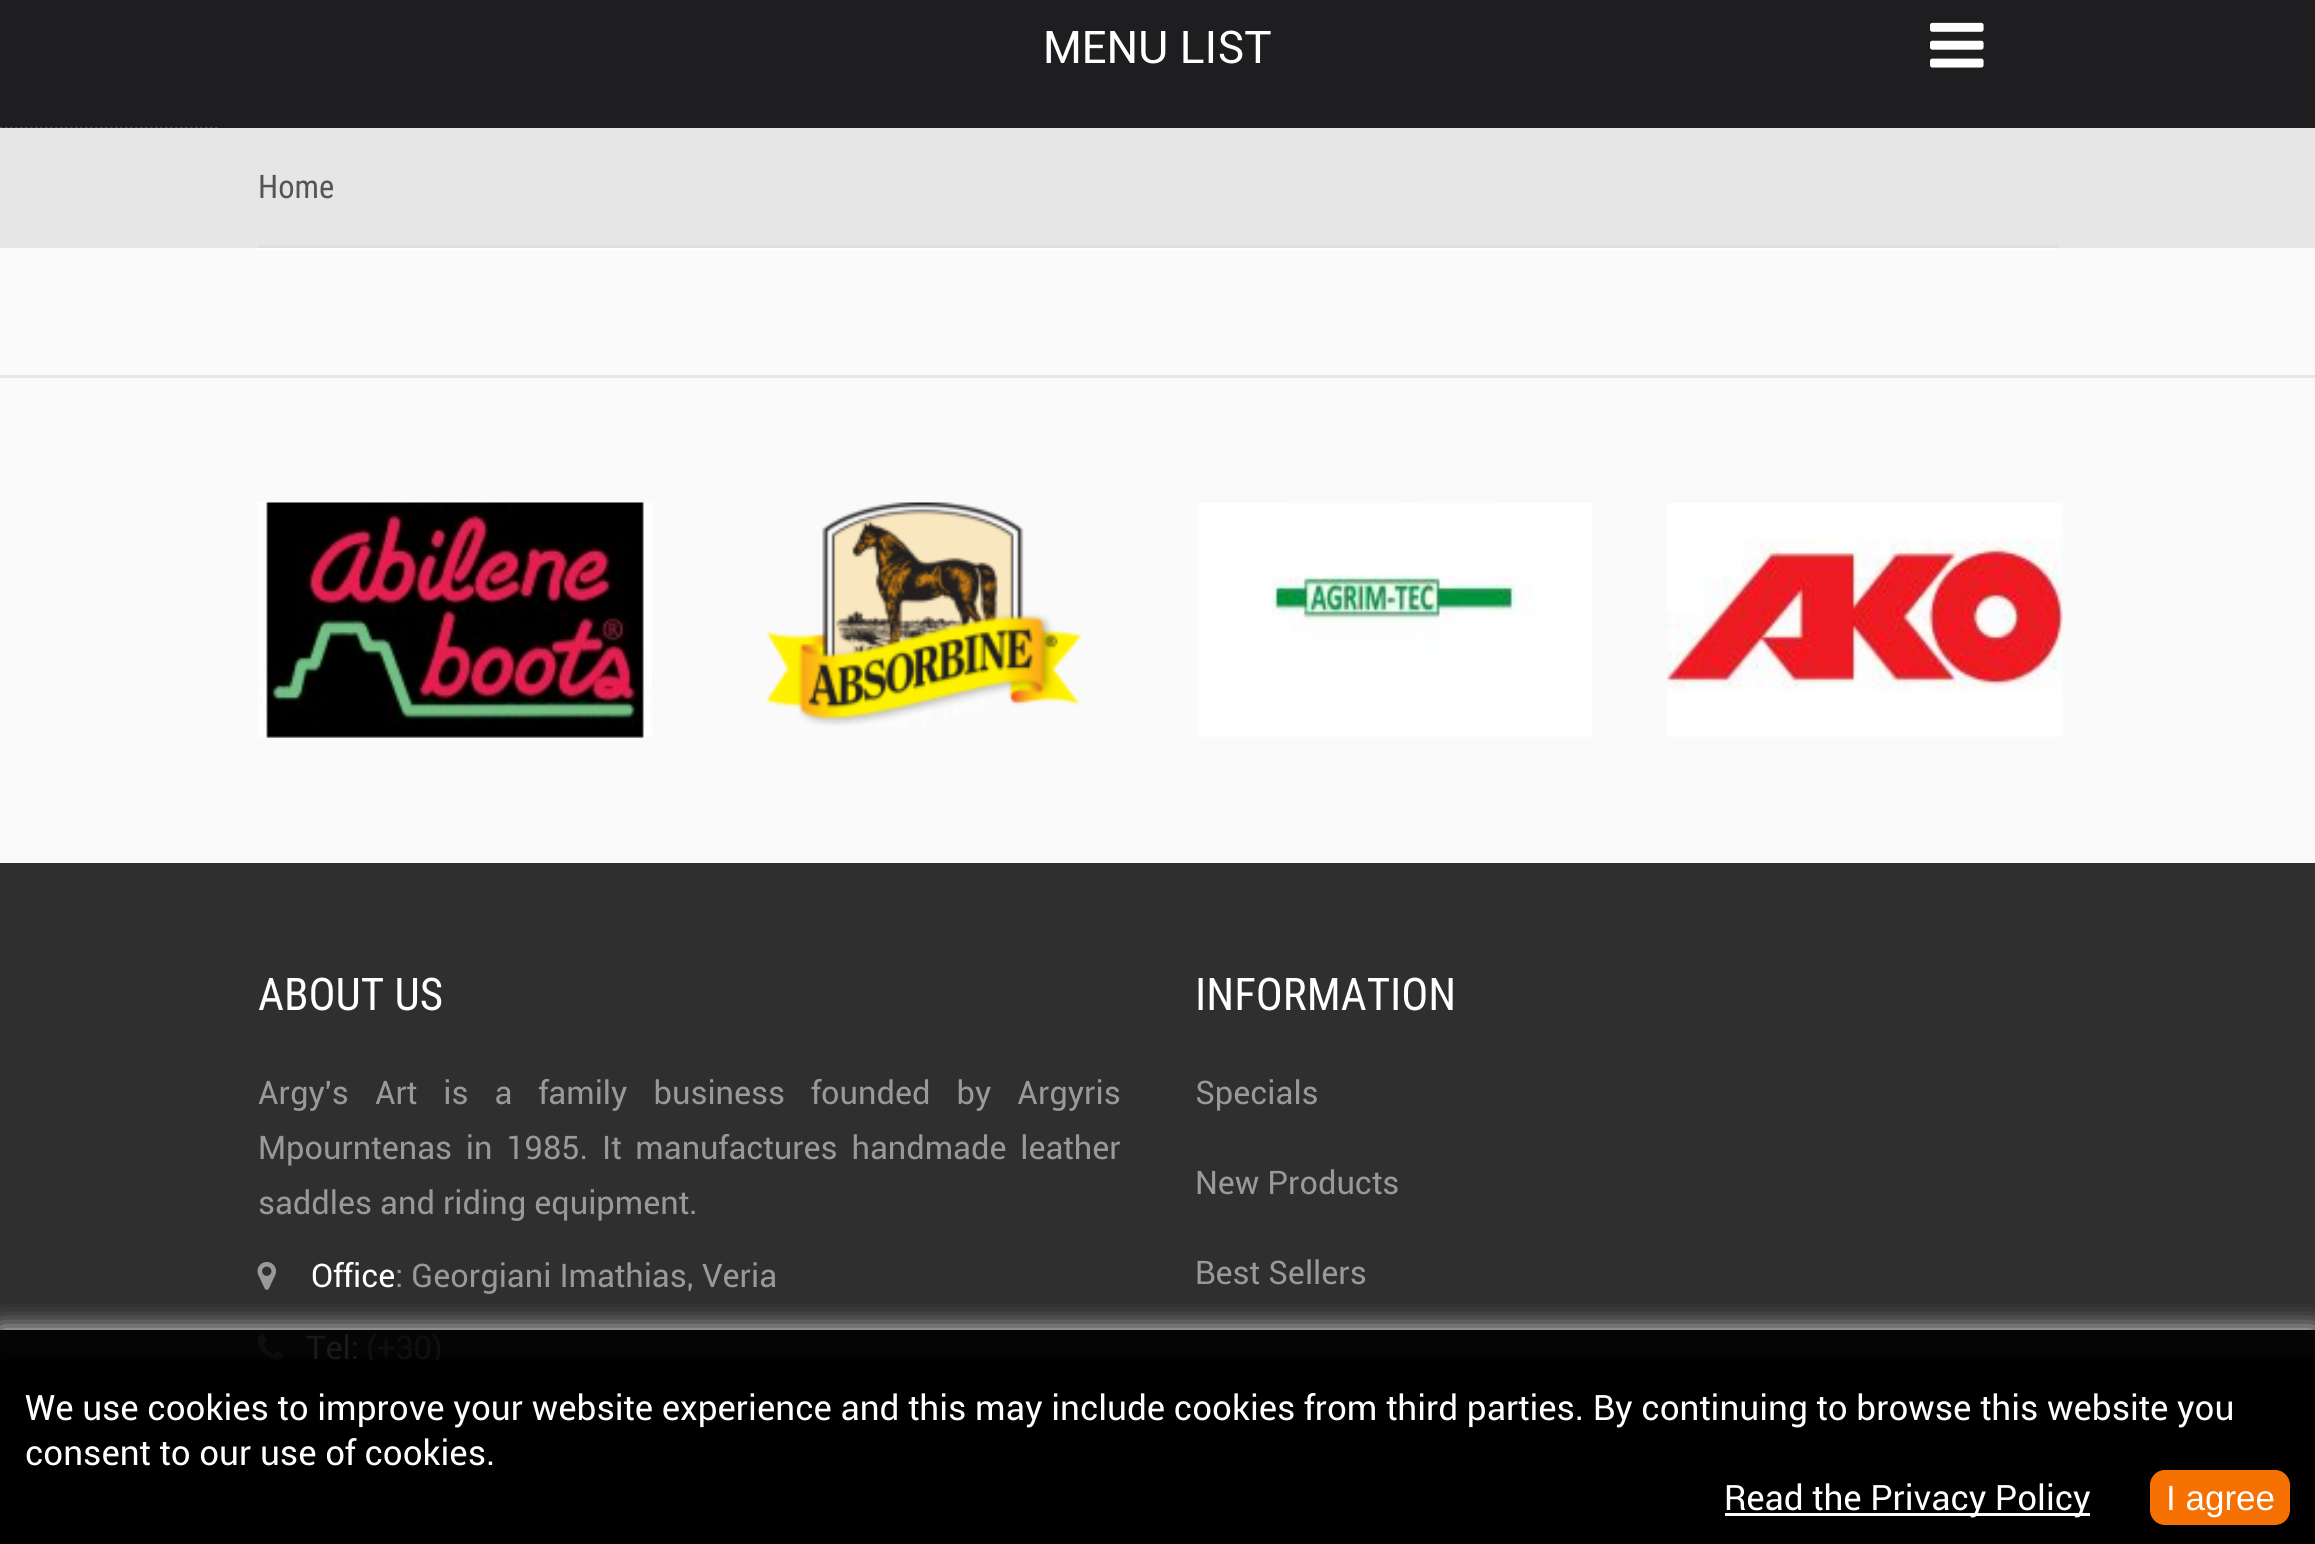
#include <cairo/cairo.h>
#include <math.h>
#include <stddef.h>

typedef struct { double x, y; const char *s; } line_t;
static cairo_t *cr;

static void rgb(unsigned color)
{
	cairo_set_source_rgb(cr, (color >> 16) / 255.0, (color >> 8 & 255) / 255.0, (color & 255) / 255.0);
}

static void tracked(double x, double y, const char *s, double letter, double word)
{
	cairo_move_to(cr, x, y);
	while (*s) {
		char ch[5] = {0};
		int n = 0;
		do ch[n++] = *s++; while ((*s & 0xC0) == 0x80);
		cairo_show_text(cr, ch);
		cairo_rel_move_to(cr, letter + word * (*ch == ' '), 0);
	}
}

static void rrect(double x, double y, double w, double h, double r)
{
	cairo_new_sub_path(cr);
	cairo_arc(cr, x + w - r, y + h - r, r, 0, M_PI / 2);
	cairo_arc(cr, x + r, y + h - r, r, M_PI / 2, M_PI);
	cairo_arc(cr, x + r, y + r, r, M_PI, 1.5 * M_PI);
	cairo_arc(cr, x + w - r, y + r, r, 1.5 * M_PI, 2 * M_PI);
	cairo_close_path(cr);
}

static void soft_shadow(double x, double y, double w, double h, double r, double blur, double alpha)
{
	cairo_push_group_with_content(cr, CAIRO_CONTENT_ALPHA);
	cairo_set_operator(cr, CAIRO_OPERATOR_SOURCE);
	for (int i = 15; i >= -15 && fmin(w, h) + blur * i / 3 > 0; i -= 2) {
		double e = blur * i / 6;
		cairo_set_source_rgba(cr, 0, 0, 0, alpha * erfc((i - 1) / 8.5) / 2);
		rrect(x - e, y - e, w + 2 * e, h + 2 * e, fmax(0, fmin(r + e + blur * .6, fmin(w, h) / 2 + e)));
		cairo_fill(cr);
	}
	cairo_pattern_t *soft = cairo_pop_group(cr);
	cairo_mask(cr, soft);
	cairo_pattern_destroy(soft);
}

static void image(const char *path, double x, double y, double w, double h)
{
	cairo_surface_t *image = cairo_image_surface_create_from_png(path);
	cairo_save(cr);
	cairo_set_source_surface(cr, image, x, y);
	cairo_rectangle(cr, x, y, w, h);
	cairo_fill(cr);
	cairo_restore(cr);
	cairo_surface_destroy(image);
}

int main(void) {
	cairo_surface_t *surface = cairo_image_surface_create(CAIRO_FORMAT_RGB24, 2315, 1544);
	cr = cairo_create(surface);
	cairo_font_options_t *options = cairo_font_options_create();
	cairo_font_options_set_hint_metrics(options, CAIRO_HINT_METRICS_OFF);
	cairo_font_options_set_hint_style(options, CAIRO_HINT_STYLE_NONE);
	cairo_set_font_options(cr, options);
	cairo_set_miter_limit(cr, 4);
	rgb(0xfafafa);
	cairo_paint(cr);
	rgb(0x1e1e21);
	cairo_rectangle(cr, 0, 0, 2315, 128);
	cairo_fill(cr);
	image("img/1.png", 1930, 22, 54, 46);
	rgb(0xe6e6e6);
	cairo_rectangle(cr, 0, 128, 2315, 120);
	cairo_fill(cr);
	cairo_new_path(cr);
	cairo_move_to(cr, -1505, 129);
	cairo_line_to(cr, 220, 129);
	cairo_set_line_width(cr, 2.5);
	cairo_set_dash(cr, (double[]){2.5, 2.5}, 2, 0);
	cairo_stroke(cr);
	rgb(0xffffff);
	cairo_new_path(cr);
	cairo_move_to(cr, 258, 248);
	cairo_line_to(cr, 258, 250);
	cairo_line_to(cr, 2058, 250);
	cairo_line_to(cr, 2058, 130);
	cairo_line_to(cr, 2058, 248);
	cairo_close_path(cr);
	cairo_fill(cr);
	rgb(0xe2dfdf);
	cairo_rectangle(cr, 258, 245, 1800, 3);
	cairo_fill(cr);
	rgb(0xe6e6e6);
	cairo_rectangle(cr, 0, 375, 2315, 3);
	cairo_fill(cr);
	image("img/2.png", 258, 502, 394, 236);
	image("img/3.png", 766, 502, 316, 224);
	image("img/4.png", 1198, 503, 394, 234);
	image("img/5.png", 1667, 503, 396, 234);
	rgb(0x2f2f2f);
	cairo_rectangle(cr, 0, 863, 2315, 467);
	cairo_fill(cr);
	rgb(0x050505);
	cairo_rectangle(cr, 0, 1330, 2315, 30);
	cairo_fill(cr);
	image("img/6.png", 257, 1262, 20, 28);
	image("img/7.png", 257, 1334, 26, 26);
	cairo_save(cr);
	cairo_rectangle(cr, 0, 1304, 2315, 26);
	cairo_clip(cr);
	rgb(0xeaeaea);
	soft_shadow(0, 1330, 2315, 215, 0, 12.5, 1);
	cairo_restore(cr);
	rgb(0x000000);
	soft_shadow(0, 1360, 2315, 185, 0, 7.5, 1);
	cairo_select_font_face(cr, "Roboto", CAIRO_FONT_SLANT_NORMAL, CAIRO_FONT_WEIGHT_NORMAL);
	cairo_set_font_size(cr, 45);
	rgb(0xffffff);
	cairo_move_to(cr, 1043, 63);
	cairo_show_text(cr, "MENU LIST");
	cairo_select_font_face(cr, "Roboto Condensed", CAIRO_FONT_SLANT_NORMAL, CAIRO_FONT_WEIGHT_NORMAL);
	cairo_set_font_size(cr, 32.5);
	rgb(0x555555);
	cairo_move_to(cr, 258, 198);
	cairo_show_text(cr, "Home");
	cairo_set_font_size(cr, 45);
	rgb(0xffffff);
	cairo_move_to(cr, 258, 1010);
	cairo_show_text(cr, "ABOUT US");
	cairo_select_font_face(cr, "Roboto", CAIRO_FONT_SLANT_NORMAL, CAIRO_FONT_WEIGHT_NORMAL);
	cairo_set_font_size(cr, 32.5);
	rgb(0x999999);
	tracked(258, 1104, "Argy's Art is a family business founded by Argyris", 0, 18);
	tracked(258, 1159, "Mpourntenas in 1985. It manufactures handmade leather", 0, 5.75);
	cairo_move_to(cr, 258, 1214);
	cairo_show_text(cr, "saddles and riding equipment.");
	rgb(0xffffff);
	cairo_move_to(cr, 311, 1287);
	cairo_show_text(cr, "Office");
	rgb(0x999999);
	cairo_move_to(cr, 395, 1287);
	cairo_show_text(cr, ": Georgiani Imathias, Veria");
	rgb(0x191919);
	cairo_move_to(cr, 306, 1359);
	cairo_show_text(cr, "Tel:");
	rgb(0x0f0f0f);
	cairo_move_to(cr, 366, 1359);
	cairo_show_text(cr, "(+30)");
	cairo_select_font_face(cr, "Roboto Condensed", CAIRO_FONT_SLANT_NORMAL, CAIRO_FONT_WEIGHT_NORMAL);
	cairo_set_font_size(cr, 45);
	rgb(0xffffff);
	cairo_move_to(cr, 1195, 1010);
	cairo_show_text(cr, "INFORMATION");
	cairo_select_font_face(cr, "Roboto", CAIRO_FONT_SLANT_NORMAL, CAIRO_FONT_WEIGHT_NORMAL);
	cairo_set_font_size(cr, 32.5);
	rgb(0x999999);
	{
		static const line_t items[] = {
			{1195, 1104, "Specials"},
			{1195, 1194, "New Products"},
			{1195, 1284, "Best Sellers"},
		};
		for (size_t i = 0; i < sizeof items / sizeof *items; i++) {
			cairo_move_to(cr, items[i].x, items[i].y);
			cairo_show_text(cr, items[i].s);
		}
	}
	rgb(0x000000);
	cairo_rectangle(cr, 0, 1360, 2315, 184);
	cairo_fill(cr);
	cairo_set_font_size(cr, 35);
	rgb(0xffffff);
	cairo_move_to(cr, 25, 1420);
	cairo_show_text(cr, "We use cookies to improve your website experience and this may include cookies from third parties. By continuing to browse this website you");
	cairo_move_to(cr, 25, 1465);
	cairo_show_text(cr, "consent to our use of cookies.");
	cairo_rectangle(cr, 1725, 1513, 365, 3);
	cairo_fill(cr);
	cairo_move_to(cr, 1724, 1510);
	cairo_show_text(cr, "Read the Privacy Policy");
	rgb(0xf77002);
	rrect(2150, 1470, 140, 55, 15);
	cairo_fill(cr);
	cairo_select_font_face(cr, "Liberation Sans", CAIRO_FONT_SLANT_NORMAL, CAIRO_FONT_WEIGHT_NORMAL);
	rgb(0xffffff);
	cairo_move_to(cr, 2166, 1510);
	cairo_show_text(cr, "I agree");
	cairo_surface_write_to_png(surface, "page.png");
	cairo_font_options_destroy(options);
	cairo_destroy(cr);
	cairo_surface_destroy(surface);
	return 0;
}
